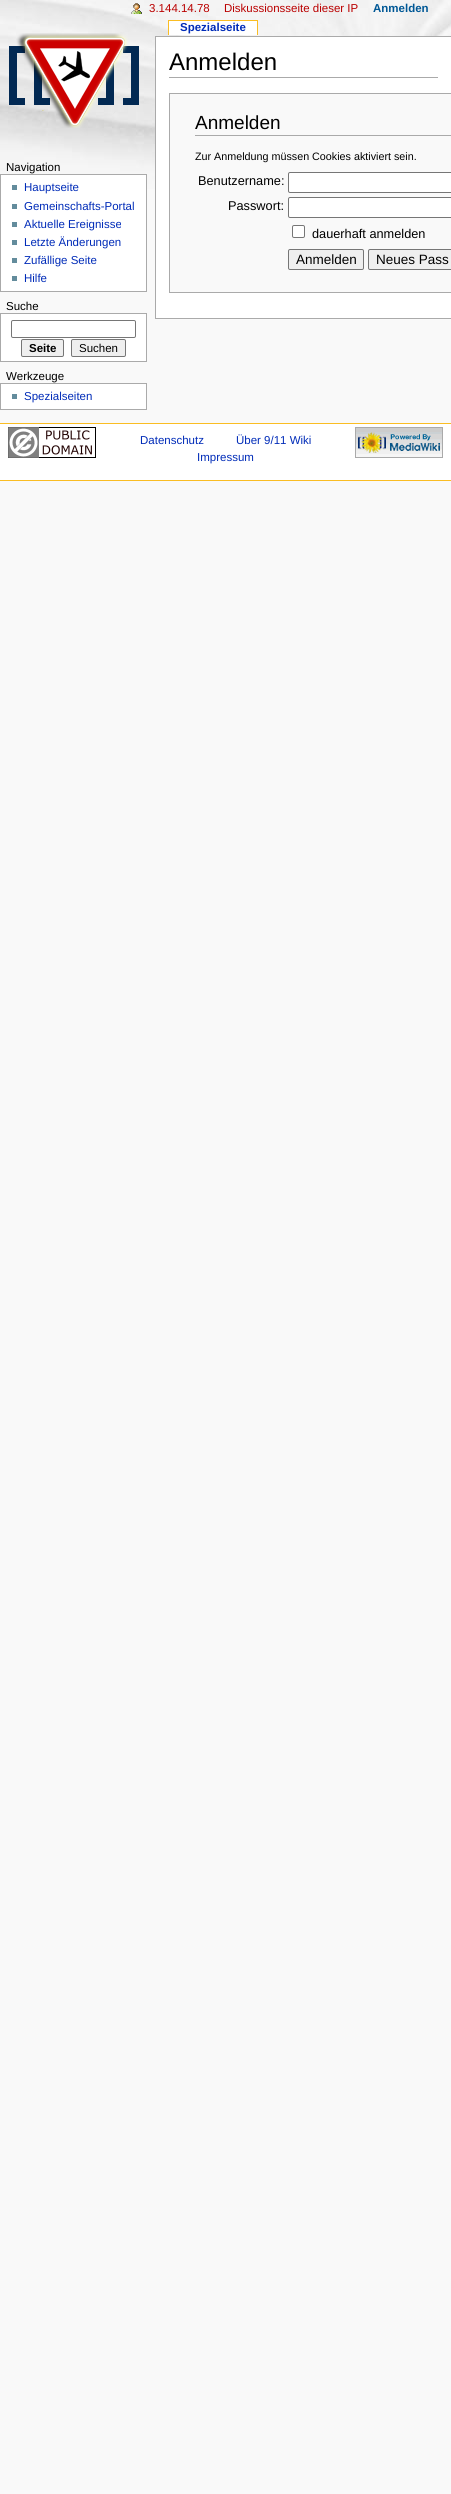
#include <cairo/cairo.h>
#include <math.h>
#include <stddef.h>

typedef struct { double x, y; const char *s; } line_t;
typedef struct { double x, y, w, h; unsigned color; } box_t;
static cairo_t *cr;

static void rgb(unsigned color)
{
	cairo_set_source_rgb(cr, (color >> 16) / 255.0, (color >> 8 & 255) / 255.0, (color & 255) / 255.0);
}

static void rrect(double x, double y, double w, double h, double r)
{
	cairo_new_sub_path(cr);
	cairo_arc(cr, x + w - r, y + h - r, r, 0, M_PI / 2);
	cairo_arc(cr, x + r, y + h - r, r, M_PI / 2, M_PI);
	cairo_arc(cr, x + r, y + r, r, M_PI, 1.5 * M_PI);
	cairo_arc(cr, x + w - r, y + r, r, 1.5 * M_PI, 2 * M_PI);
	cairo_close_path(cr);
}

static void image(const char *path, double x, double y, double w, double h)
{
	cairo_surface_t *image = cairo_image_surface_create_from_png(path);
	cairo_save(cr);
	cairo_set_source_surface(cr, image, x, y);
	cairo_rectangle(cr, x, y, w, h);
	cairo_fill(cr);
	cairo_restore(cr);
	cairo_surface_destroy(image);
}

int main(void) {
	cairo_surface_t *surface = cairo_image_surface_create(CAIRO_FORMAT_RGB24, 451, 2494);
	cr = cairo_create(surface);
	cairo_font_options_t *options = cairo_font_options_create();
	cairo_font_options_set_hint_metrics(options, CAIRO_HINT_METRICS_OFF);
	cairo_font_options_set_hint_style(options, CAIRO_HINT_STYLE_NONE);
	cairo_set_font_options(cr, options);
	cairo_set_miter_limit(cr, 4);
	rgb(0xf9f9f9);
	cairo_paint(cr);
	image("img/1.png", 0, 0, 451, 189);
	image("img/2.png", 131, 3, 11, 11);
	{
		static const box_t items[] = {
			{169, 21, 88, 14, 0xffffff},
			{168, 20, 90, 1, 0xfabd23},
			{257, 20, 1, 15, 0xfabd23},
			{168, 20, 1, 15, 0xfabd23},
		};
		for (size_t i = 0; i < sizeof items / sizeof *items; i++) {
			rgb(items[i].color);
			cairo_rectangle(cr, items[i].x, items[i].y, items[i].w, items[i].h);
			cairo_fill(cr);
		}
	}
	image("img/3.png", 9, 33, 130, 95);
	rgb(0xffffff);
	cairo_rectangle(cr, 0.5, 174.5, 146, 117);
	cairo_fill_preserve(cr);
	rgb(0xaaaaaa);
	cairo_set_line_width(cr, 1);
	cairo_stroke(cr);
	{
		static const box_t items[] = {
			{12, 185, 5, 5, 0x638c9c},
			{12, 204, 5, 5, 0x638c9c},
			{12, 222, 5, 5, 0x638c9c},
			{12, 240, 5, 5, 0x638c9c},
			{12, 258, 5, 5, 0x638c9c},
			{12, 276, 5, 5, 0x638c9c},
		};
		for (size_t i = 0; i < sizeof items / sizeof *items; i++) {
			rgb(items[i].color);
			cairo_rectangle(cr, items[i].x, items[i].y, items[i].w, items[i].h);
			cairo_fill(cr);
		}
	}
	rgb(0xffffff);
	cairo_rectangle(cr, 0.5, 313.5, 146, 48);
	cairo_fill_preserve(cr);
	rgb(0xaaaaaa);
	cairo_stroke(cr);
	rrect(11.5, 320.5, 124, 17, 1.5);
	rgb(0x767676);
	cairo_stroke(cr);
	rgb(0xefefef);
	rrect(21.5, 339.5, 42, 17, 1.5);
	cairo_fill_preserve(cr);
	rgb(0x767676);
	cairo_stroke(cr);
	rgb(0xefefef);
	rrect(71.5, 339.5, 54, 17, 1.5);
	cairo_fill_preserve(cr);
	rgb(0x767676);
	cairo_stroke(cr);
	rgb(0xffffff);
	cairo_rectangle(cr, 0.5, 383.5, 146, 26);
	cairo_fill_preserve(cr);
	rgb(0xaaaaaa);
	cairo_stroke(cr);
	{
		static const box_t items[] = {
			{12, 394, 5, 5, 0x638c9c},
			{156, 37, 295, 281, 0xffffff},
			{155, 36, 296, 1, 0xaaaaaa},
			{155, 318, 296, 1, 0xaaaaaa},
			{155, 36, 1, 283, 0xaaaaaa},
			{169, 77, 269, 1, 0xaaaaaa},
		};
		for (size_t i = 0; i < sizeof items / sizeof *items; i++) {
			rgb(items[i].color);
			cairo_rectangle(cr, items[i].x, items[i].y, items[i].w, items[i].h);
			cairo_fill(cr);
		}
	}
	rgb(0xf9f9f9);
	cairo_rectangle(cr, 169.5, 93.5, 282, 199);
	cairo_fill_preserve(cr);
	rgb(0xaaaaaa);
	cairo_stroke(cr);
	cairo_rectangle(cr, 195, 135, 256, 1);
	cairo_fill(cr);
	rgb(0xffffff);
	rrect(288.5, 172.5, 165, 20, 1.5);
	cairo_fill_preserve(cr);
	rgb(0x767676);
	cairo_stroke(cr);
	rgb(0xffffff);
	rrect(288.5, 197.5, 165, 20, 1.5);
	cairo_fill_preserve(cr);
	rgb(0x767676);
	cairo_stroke(cr);
	rgb(0xffffff);
	rrect(292.5, 225.5, 12, 12, 1.5);
	cairo_fill_preserve(cr);
	rgb(0x767676);
	cairo_stroke(cr);
	rgb(0xefefef);
	rrect(288.5, 249.5, 75, 20, 1.5);
	cairo_fill_preserve(cr);
	rgb(0x767676);
	cairo_stroke(cr);
	rgb(0xefefef);
	rrect(368.5, 249.5, 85, 20, 1.5);
	cairo_fill_preserve(cr);
	rgb(0x767676);
	cairo_stroke(cr);
	{
		static const box_t items[] = {
			{0, 424, 451, 56, 0xffffff},
			{0, 423, 451, 1, 0xfabd23},
			{0, 480, 451, 1, 0xfabd23},
		};
		for (size_t i = 0; i < sizeof items / sizeof *items; i++) {
			rgb(items[i].color);
			cairo_rectangle(cr, items[i].x, items[i].y, items[i].w, items[i].h);
			cairo_fill(cr);
		}
	}
	image("img/4.png", 8, 427, 88, 31);
	image("img/5.png", 355, 427, 88, 31);
	cairo_select_font_face(cr, "Liberation Sans", CAIRO_FONT_SLANT_NORMAL, CAIRO_FONT_WEIGHT_NORMAL);
	cairo_set_font_size(cr, 11.5);
	rgb(0xba0000);
	cairo_move_to(cr, 149, 12);
	cairo_show_text(cr, "3.144.14.78");
	cairo_move_to(cr, 224, 12);
	cairo_show_text(cr, "Diskussionsseite dieser IP");
	cairo_select_font_face(cr, "Liberation Sans", CAIRO_FONT_SLANT_NORMAL, CAIRO_FONT_WEIGHT_BOLD);
	rgb(0x005896);
	cairo_move_to(cr, 373, 12);
	cairo_show_text(cr, "Anmelden");
	rgb(0x002bb8);
	cairo_move_to(cr, 180, 31);
	cairo_show_text(cr, "Spezialseite");
	cairo_select_font_face(cr, "Liberation Sans", CAIRO_FONT_SLANT_NORMAL, CAIRO_FONT_WEIGHT_NORMAL);
	rgb(0x000000);
	cairo_move_to(cr, 6, 171);
	cairo_show_text(cr, "Navigation");
	rgb(0x002bb8);
	{
		static const line_t items[] = {
			{24, 191, "Hauptseite"},
			{24, 210, "Gemeinschafts-Portal"},
			{24, 228, "Aktuelle Ereignisse"},
			{24, 246, "Letzte Änderungen"},
			{24, 264, "Zufällige Seite"},
			{24, 282, "Hilfe"},
		};
		for (size_t i = 0; i < sizeof items / sizeof *items; i++) {
			cairo_move_to(cr, items[i].x, items[i].y);
			cairo_show_text(cr, items[i].s);
		}
	}
	rgb(0x000000);
	cairo_move_to(cr, 6, 310);
	cairo_show_text(cr, "Suche");
	cairo_select_font_face(cr, "Liberation Sans", CAIRO_FONT_SLANT_NORMAL, CAIRO_FONT_WEIGHT_BOLD);
	cairo_move_to(cr, 29, 352);
	cairo_show_text(cr, "Seite");
	cairo_select_font_face(cr, "Liberation Sans", CAIRO_FONT_SLANT_NORMAL, CAIRO_FONT_WEIGHT_NORMAL);
	cairo_move_to(cr, 79, 352);
	cairo_show_text(cr, "Suchen");
	cairo_move_to(cr, 6, 380);
	cairo_show_text(cr, "Werkzeuge");
	rgb(0x002bb8);
	cairo_move_to(cr, 24, 400);
	cairo_show_text(cr, "Spezialseiten");
	cairo_set_font_size(cr, 24);
	rgb(0x000000);
	cairo_move_to(cr, 169, 70);
	cairo_show_text(cr, "Anmelden");
	cairo_set_font_size(cr, 19);
	cairo_move_to(cr, 195, 129);
	cairo_show_text(cr, "Anmelden");
	cairo_set_font_size(cr, 10.75);
	cairo_move_to(cr, 195, 160);
	cairo_show_text(cr, "Zur Anmeldung müssen Cookies aktiviert sein.");
	cairo_set_font_size(cr, 12.75);
	{
		static const line_t items[] = {
			{198, 185, "Benutzername:"},
			{228, 210, "Passwort:"},
			{312, 238, "dauerhaft anmelden"},
		};
		for (size_t i = 0; i < sizeof items / sizeof *items; i++) {
			cairo_move_to(cr, items[i].x, items[i].y);
			cairo_show_text(cr, items[i].s);
		}
	}
	cairo_set_font_size(cr, 13.5);
	cairo_move_to(cr, 296, 264);
	cairo_show_text(cr, "Anmelden");
	cairo_move_to(cr, 376, 264);
	cairo_show_text(cr, "Neues Pass");
	cairo_set_font_size(cr, 11.5);
	rgb(0x002bb8);
	{
		static const line_t items[] = {
			{140, 444, "Datenschutz"},
			{236, 444, "Über 9/11 Wiki"},
			{197, 461, "Impressum"},
		};
		for (size_t i = 0; i < sizeof items / sizeof *items; i++) {
			cairo_move_to(cr, items[i].x, items[i].y);
			cairo_show_text(cr, items[i].s);
		}
	}
	cairo_surface_write_to_png(surface, "page.png");
	cairo_font_options_destroy(options);
	cairo_destroy(cr);
	cairo_surface_destroy(surface);
	return 0;
}
